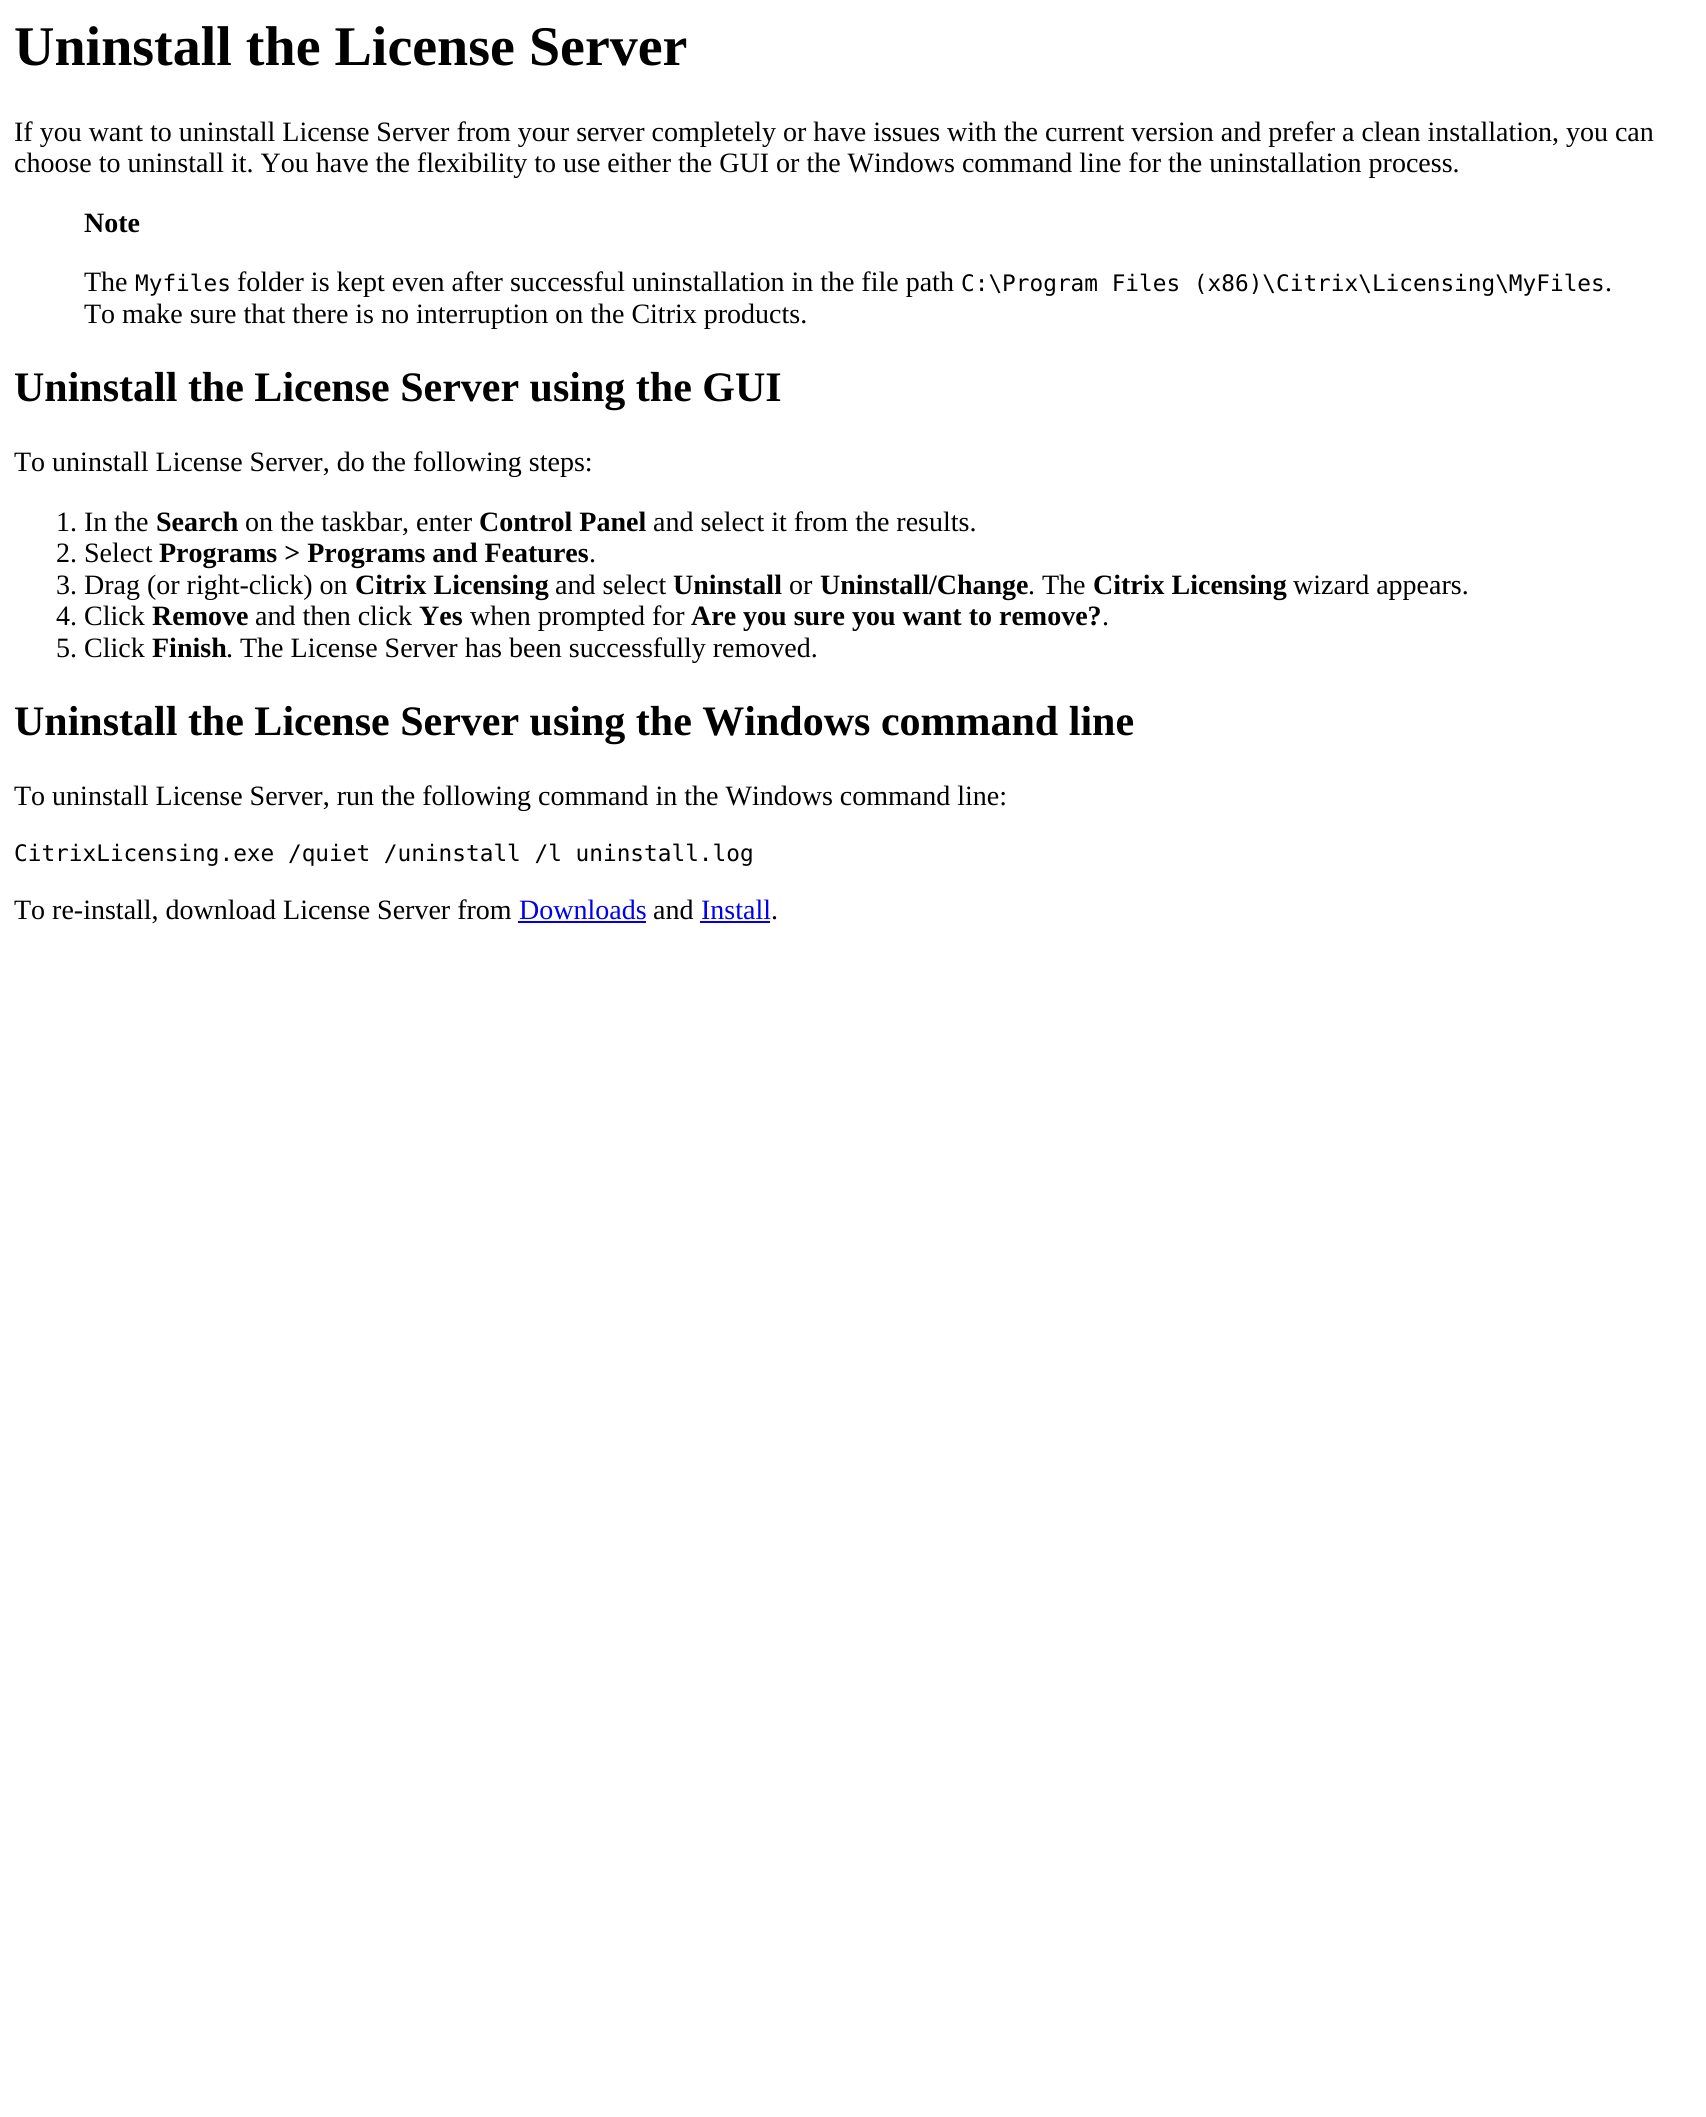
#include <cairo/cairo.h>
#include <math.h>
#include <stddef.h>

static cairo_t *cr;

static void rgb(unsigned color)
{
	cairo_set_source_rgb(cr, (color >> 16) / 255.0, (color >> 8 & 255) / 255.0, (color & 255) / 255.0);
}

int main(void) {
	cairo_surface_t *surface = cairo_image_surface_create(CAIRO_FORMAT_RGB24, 1706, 2117);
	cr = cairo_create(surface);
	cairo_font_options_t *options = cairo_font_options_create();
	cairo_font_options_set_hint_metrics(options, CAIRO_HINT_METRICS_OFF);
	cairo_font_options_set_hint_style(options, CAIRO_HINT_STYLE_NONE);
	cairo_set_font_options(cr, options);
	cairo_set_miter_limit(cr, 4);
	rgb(0xffffff);
	cairo_paint(cr);
	rgb(0x0000ee);
	cairo_rectangle(cr, 518, 921, 128, 2);
	cairo_fill(cr);
	cairo_rectangle(cr, 700, 921, 70, 2);
	cairo_fill(cr);
	cairo_select_font_face(cr, "Liberation Serif", CAIRO_FONT_SLANT_NORMAL, CAIRO_FONT_WEIGHT_BOLD);
	cairo_set_font_size(cr, 56);
	rgb(0x000000);
	cairo_move_to(cr, 14, 65);
	cairo_show_text(cr, "Uninstall the License Server");
	cairo_select_font_face(cr, "Liberation Serif", CAIRO_FONT_SLANT_NORMAL, CAIRO_FONT_WEIGHT_NORMAL);
	cairo_set_font_size(cr, 28);
	cairo_move_to(cr, 14, 141);
	cairo_show_text(cr, "If you want to uninstall License Server from your server completely or have issues with the current version and prefer a clean installation, you can");
	cairo_move_to(cr, 14, 172);
	cairo_show_text(cr, "choose to uninstall it. You have the flexibility to use either the GUI or the Windows command line for the uninstallation process.");
	cairo_select_font_face(cr, "Liberation Serif", CAIRO_FONT_SLANT_NORMAL, CAIRO_FONT_WEIGHT_BOLD);
	cairo_move_to(cr, 84, 232);
	cairo_show_text(cr, "Note");
	cairo_select_font_face(cr, "Liberation Serif", CAIRO_FONT_SLANT_NORMAL, CAIRO_FONT_WEIGHT_NORMAL);
	cairo_move_to(cr, 84, 291);
	cairo_show_text(cr, "The");
	cairo_select_font_face(cr, "DejaVu Sans Mono", CAIRO_FONT_SLANT_NORMAL, CAIRO_FONT_WEIGHT_NORMAL);
	cairo_set_font_size(cr, 22.75);
	cairo_move_to(cr, 135, 291);
	cairo_show_text(cr, "Myfiles");
	cairo_select_font_face(cr, "Liberation Serif", CAIRO_FONT_SLANT_NORMAL, CAIRO_FONT_WEIGHT_NORMAL);
	cairo_set_font_size(cr, 28);
	cairo_move_to(cr, 237, 291);
	cairo_show_text(cr, "folder is kept even after successful uninstallation in the file path");
	cairo_select_font_face(cr, "DejaVu Sans Mono", CAIRO_FONT_SLANT_NORMAL, CAIRO_FONT_WEIGHT_NORMAL);
	cairo_set_font_size(cr, 22.75);
	cairo_move_to(cr, 961, 291);
	cairo_show_text(cr, "C:\\Program Files (x86)\\Citrix\\Licensing\\MyFiles");
	cairo_select_font_face(cr, "Liberation Serif", CAIRO_FONT_SLANT_NORMAL, CAIRO_FONT_WEIGHT_NORMAL);
	cairo_set_font_size(cr, 28);
	cairo_move_to(cr, 1605, 291);
	cairo_show_text(cr, ".");
	cairo_move_to(cr, 84, 323);
	cairo_show_text(cr, "To make sure that there is no interruption on the Citrix products.");
	cairo_select_font_face(cr, "Liberation Serif", CAIRO_FONT_SLANT_NORMAL, CAIRO_FONT_WEIGHT_BOLD);
	cairo_set_font_size(cr, 42);
	cairo_move_to(cr, 14, 401);
	cairo_show_text(cr, "Uninstall the License Server using the GUI");
	cairo_select_font_face(cr, "Liberation Serif", CAIRO_FONT_SLANT_NORMAL, CAIRO_FONT_WEIGHT_NORMAL);
	cairo_set_font_size(cr, 28);
	cairo_move_to(cr, 14, 471);
	cairo_show_text(cr, "To uninstall License Server, do the following steps:");
	cairo_move_to(cr, 56, 531);
	cairo_show_text(cr, "1. In the");
	cairo_select_font_face(cr, "Liberation Serif", CAIRO_FONT_SLANT_NORMAL, CAIRO_FONT_WEIGHT_BOLD);
	cairo_move_to(cr, 156, 531);
	cairo_show_text(cr, "Search");
	cairo_select_font_face(cr, "Liberation Serif", CAIRO_FONT_SLANT_NORMAL, CAIRO_FONT_WEIGHT_NORMAL);
	cairo_move_to(cr, 245, 531);
	cairo_show_text(cr, "on the taskbar, enter");
	cairo_select_font_face(cr, "Liberation Serif", CAIRO_FONT_SLANT_NORMAL, CAIRO_FONT_WEIGHT_BOLD);
	cairo_move_to(cr, 479, 531);
	cairo_show_text(cr, "Control Panel");
	cairo_select_font_face(cr, "Liberation Serif", CAIRO_FONT_SLANT_NORMAL, CAIRO_FONT_WEIGHT_NORMAL);
	cairo_move_to(cr, 653, 531);
	cairo_show_text(cr, "and select it from the results.");
	cairo_move_to(cr, 56, 562);
	cairo_show_text(cr, "2. Select");
	cairo_select_font_face(cr, "Liberation Serif", CAIRO_FONT_SLANT_NORMAL, CAIRO_FONT_WEIGHT_BOLD);
	cairo_move_to(cr, 159, 562);
	cairo_show_text(cr, "Programs > Programs and Features");
	cairo_select_font_face(cr, "Liberation Serif", CAIRO_FONT_SLANT_NORMAL, CAIRO_FONT_WEIGHT_NORMAL);
	cairo_move_to(cr, 589, 562);
	cairo_show_text(cr, ".");
	cairo_move_to(cr, 56, 594);
	cairo_show_text(cr, "3. Drag (or right-click) on");
	cairo_select_font_face(cr, "Liberation Serif", CAIRO_FONT_SLANT_NORMAL, CAIRO_FONT_WEIGHT_BOLD);
	cairo_move_to(cr, 355, 594);
	cairo_show_text(cr, "Citrix Licensing");
	cairo_select_font_face(cr, "Liberation Serif", CAIRO_FONT_SLANT_NORMAL, CAIRO_FONT_WEIGHT_NORMAL);
	cairo_move_to(cr, 555, 594);
	cairo_show_text(cr, "and select");
	cairo_select_font_face(cr, "Liberation Serif", CAIRO_FONT_SLANT_NORMAL, CAIRO_FONT_WEIGHT_BOLD);
	cairo_move_to(cr, 673, 594);
	cairo_show_text(cr, "Uninstall");
	cairo_select_font_face(cr, "Liberation Serif", CAIRO_FONT_SLANT_NORMAL, CAIRO_FONT_WEIGHT_NORMAL);
	cairo_move_to(cr, 789, 594);
	cairo_show_text(cr, "or");
	cairo_select_font_face(cr, "Liberation Serif", CAIRO_FONT_SLANT_NORMAL, CAIRO_FONT_WEIGHT_BOLD);
	cairo_move_to(cr, 820, 594);
	cairo_show_text(cr, "Uninstall/Change");
	cairo_select_font_face(cr, "Liberation Serif", CAIRO_FONT_SLANT_NORMAL, CAIRO_FONT_WEIGHT_NORMAL);
	cairo_move_to(cr, 1028, 594);
	cairo_show_text(cr, ". The");
	cairo_select_font_face(cr, "Liberation Serif", CAIRO_FONT_SLANT_NORMAL, CAIRO_FONT_WEIGHT_BOLD);
	cairo_move_to(cr, 1093, 594);
	cairo_show_text(cr, "Citrix Licensing");
	cairo_select_font_face(cr, "Liberation Serif", CAIRO_FONT_SLANT_NORMAL, CAIRO_FONT_WEIGHT_NORMAL);
	cairo_move_to(cr, 1293, 594);
	cairo_show_text(cr, "wizard appears.");
	cairo_move_to(cr, 56, 625);
	cairo_show_text(cr, "4. Click");
	cairo_select_font_face(cr, "Liberation Serif", CAIRO_FONT_SLANT_NORMAL, CAIRO_FONT_WEIGHT_BOLD);
	cairo_move_to(cr, 152, 625);
	cairo_show_text(cr, "Remove");
	cairo_select_font_face(cr, "Liberation Serif", CAIRO_FONT_SLANT_NORMAL, CAIRO_FONT_WEIGHT_NORMAL);
	cairo_move_to(cr, 255, 625);
	cairo_show_text(cr, "and then click");
	cairo_select_font_face(cr, "Liberation Serif", CAIRO_FONT_SLANT_NORMAL, CAIRO_FONT_WEIGHT_BOLD);
	cairo_move_to(cr, 419, 625);
	cairo_show_text(cr, "Yes");
	cairo_select_font_face(cr, "Liberation Serif", CAIRO_FONT_SLANT_NORMAL, CAIRO_FONT_WEIGHT_NORMAL);
	cairo_move_to(cr, 470, 625);
	cairo_show_text(cr, "when prompted for");
	cairo_select_font_face(cr, "Liberation Serif", CAIRO_FONT_SLANT_NORMAL, CAIRO_FONT_WEIGHT_BOLD);
	cairo_move_to(cr, 691, 625);
	cairo_show_text(cr, "Are you sure you want to remove?");
	cairo_select_font_face(cr, "Liberation Serif", CAIRO_FONT_SLANT_NORMAL, CAIRO_FONT_WEIGHT_NORMAL);
	cairo_move_to(cr, 1102, 625);
	cairo_show_text(cr, ".");
	cairo_move_to(cr, 56, 657);
	cairo_show_text(cr, "5. Click");
	cairo_select_font_face(cr, "Liberation Serif", CAIRO_FONT_SLANT_NORMAL, CAIRO_FONT_WEIGHT_BOLD);
	cairo_move_to(cr, 152, 657);
	cairo_show_text(cr, "Finish");
	cairo_select_font_face(cr, "Liberation Serif", CAIRO_FONT_SLANT_NORMAL, CAIRO_FONT_WEIGHT_NORMAL);
	cairo_move_to(cr, 226, 657);
	cairo_show_text(cr, ". The License Server has been successfully removed.");
	cairo_select_font_face(cr, "Liberation Serif", CAIRO_FONT_SLANT_NORMAL, CAIRO_FONT_WEIGHT_BOLD);
	cairo_set_font_size(cr, 42);
	cairo_move_to(cr, 14, 735);
	cairo_show_text(cr, "Uninstall the License Server using the Windows command line");
	cairo_select_font_face(cr, "Liberation Serif", CAIRO_FONT_SLANT_NORMAL, CAIRO_FONT_WEIGHT_NORMAL);
	cairo_set_font_size(cr, 28);
	cairo_move_to(cr, 14, 805);
	cairo_show_text(cr, "To uninstall License Server, run the following command in the Windows command line:");
	cairo_select_font_face(cr, "DejaVu Sans Mono", CAIRO_FONT_SLANT_NORMAL, CAIRO_FONT_WEIGHT_NORMAL);
	cairo_set_font_size(cr, 22.75);
	cairo_move_to(cr, 14, 861);
	cairo_show_text(cr, "CitrixLicensing.exe /quiet /uninstall /l uninstall.log");
	cairo_select_font_face(cr, "Liberation Serif", CAIRO_FONT_SLANT_NORMAL, CAIRO_FONT_WEIGHT_NORMAL);
	cairo_set_font_size(cr, 28);
	cairo_move_to(cr, 14, 919);
	cairo_show_text(cr, "To re-install, download License Server from");
	rgb(0x0000ee);
	cairo_move_to(cr, 519, 919);
	cairo_show_text(cr, "Downloads");
	rgb(0x000000);
	cairo_move_to(cr, 653, 919);
	cairo_show_text(cr, "and");
	rgb(0x0000ee);
	cairo_move_to(cr, 701, 919);
	cairo_show_text(cr, "Install");
	rgb(0x000000);
	cairo_move_to(cr, 771, 919);
	cairo_show_text(cr, ".");
	cairo_surface_write_to_png(surface, "page.png");
	cairo_font_options_destroy(options);
	cairo_destroy(cr);
	cairo_surface_destroy(surface);
	return 0;
}
